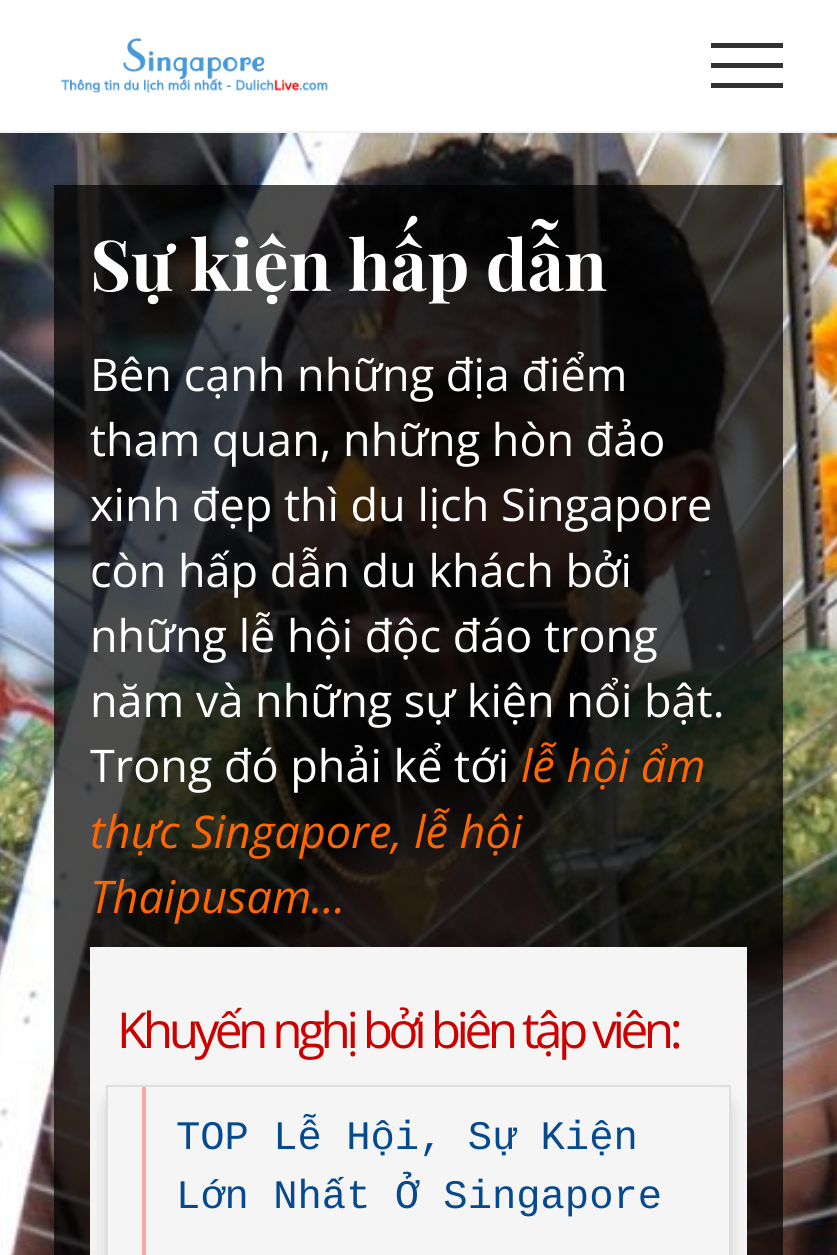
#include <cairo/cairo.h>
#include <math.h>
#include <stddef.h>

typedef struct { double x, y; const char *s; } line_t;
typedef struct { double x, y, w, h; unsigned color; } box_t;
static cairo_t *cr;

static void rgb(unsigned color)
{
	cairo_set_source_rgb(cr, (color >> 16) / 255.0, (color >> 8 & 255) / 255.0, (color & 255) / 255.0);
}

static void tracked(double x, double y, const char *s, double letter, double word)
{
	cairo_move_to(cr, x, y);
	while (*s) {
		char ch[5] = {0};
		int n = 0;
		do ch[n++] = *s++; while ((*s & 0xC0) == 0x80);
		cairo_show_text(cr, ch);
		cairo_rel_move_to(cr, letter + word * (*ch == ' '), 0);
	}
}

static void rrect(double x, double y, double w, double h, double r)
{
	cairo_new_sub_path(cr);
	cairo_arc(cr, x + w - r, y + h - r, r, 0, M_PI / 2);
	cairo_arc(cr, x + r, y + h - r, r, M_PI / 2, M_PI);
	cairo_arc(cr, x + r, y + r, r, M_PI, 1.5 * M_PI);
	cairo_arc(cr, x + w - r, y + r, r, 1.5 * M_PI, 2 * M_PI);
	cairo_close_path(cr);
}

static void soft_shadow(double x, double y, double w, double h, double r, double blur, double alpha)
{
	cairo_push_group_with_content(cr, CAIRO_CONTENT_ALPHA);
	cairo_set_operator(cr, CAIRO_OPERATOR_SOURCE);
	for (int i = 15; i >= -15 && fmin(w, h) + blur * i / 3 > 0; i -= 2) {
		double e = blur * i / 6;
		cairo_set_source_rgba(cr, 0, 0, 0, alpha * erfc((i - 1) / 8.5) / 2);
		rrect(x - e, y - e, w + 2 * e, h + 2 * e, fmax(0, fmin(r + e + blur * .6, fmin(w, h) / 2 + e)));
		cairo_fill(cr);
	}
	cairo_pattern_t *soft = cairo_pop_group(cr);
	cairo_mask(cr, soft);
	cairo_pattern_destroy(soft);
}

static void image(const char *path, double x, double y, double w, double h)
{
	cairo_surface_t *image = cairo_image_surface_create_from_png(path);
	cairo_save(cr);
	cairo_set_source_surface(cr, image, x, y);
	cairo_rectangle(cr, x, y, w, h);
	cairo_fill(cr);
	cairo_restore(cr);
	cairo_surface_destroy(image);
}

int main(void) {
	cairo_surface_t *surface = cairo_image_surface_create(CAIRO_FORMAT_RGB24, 837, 1255);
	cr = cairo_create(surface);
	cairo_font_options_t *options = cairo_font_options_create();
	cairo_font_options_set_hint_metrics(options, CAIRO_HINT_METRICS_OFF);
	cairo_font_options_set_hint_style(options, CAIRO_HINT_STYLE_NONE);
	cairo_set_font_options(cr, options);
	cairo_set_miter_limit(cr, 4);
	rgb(0xffffff);
	cairo_paint(cr);
	rgb(0xf2f2f2);
	cairo_rectangle(cr, 0, 131, 837, 2);
	cairo_fill(cr);
	image("img/1.png", 61, 38, 267, 55);
	{
		static const box_t items[] = {
			{711, 63, 72, 5, 0x323232},
			{711, 43, 72, 5, 0x323232},
			{711, 83, 72, 5, 0x323232},
		};
		for (size_t i = 0; i < sizeof items / sizeof *items; i++) {
			rgb(items[i].color);
			cairo_rectangle(cr, items[i].x, items[i].y, items[i].w, items[i].h);
			cairo_fill(cr);
		}
	}
	image("img/2.png", 0, 133, 837, 1122);
	cairo_set_source_rgba(cr, 0, 0, 0, 0.7);
	cairo_rectangle(cr, 54, 185, 729, 1070);
	cairo_fill(cr);
	rgb(0xf5f5f5);
	cairo_rectangle(cr, 90, 947, 657, 308);
	cairo_fill(cr);
	cairo_save(cr);
	cairo_set_fill_rule(cr, CAIRO_FILL_RULE_EVEN_ODD);
	cairo_new_path(cr);
	cairo_move_to(cr, 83, 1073);
	cairo_line_to(cr, 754, 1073);
	cairo_line_to(cr, 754, 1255);
	cairo_line_to(cr, 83, 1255);
	cairo_close_path(cr);
	cairo_move_to(cr, 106, 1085);
	cairo_line_to(cr, 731, 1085);
	cairo_line_to(cr, 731, 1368);
	cairo_line_to(cr, 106, 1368);
	cairo_close_path(cr);
	cairo_clip(cr);
	rgb(0x000000);
	soft_shadow(117, 1107, 603, 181, 0, 11, 0.5);
	cairo_restore(cr);
	cairo_rectangle(cr, 107, 1086, 623, 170);
	rgb(0xdedede);
	cairo_stroke(cr);
	rgb(0xffaa9f);
	cairo_rectangle(cr, 142, 1087, 4, 168);
	cairo_fill(cr);
	cairo_select_font_face(cr, "Playfair Display", CAIRO_FONT_SLANT_NORMAL, CAIRO_FONT_WEIGHT_BOLD);
	cairo_set_font_size(cr, 70.25);
	rgb(0xffffff);
	cairo_move_to(cr, 90, 291);
	cairo_show_text(cr, "Sự kiện hấp dẫn");
	cairo_select_font_face(cr, "Open Sans", CAIRO_FONT_SLANT_NORMAL, CAIRO_FONT_WEIGHT_NORMAL);
	cairo_set_font_size(cr, 45);
	{
		static const line_t items[] = {
			{90, 391, "Bên cạnh những địa điểm"},
			{90, 456, "tham quan, những hòn đảo"},
			{90, 521, "xinh đẹp thì du lịch Singapore"},
			{90, 587, "còn hấp dẫn du khách bởi"},
			{90, 652, "những lễ hội độc đáo trong"},
			{90, 717, "năm và những sự kiện nổi bật."},
			{90, 782, "Trong đó phải kể tới"},
		};
		for (size_t i = 0; i < sizeof items / sizeof *items; i++) {
			cairo_move_to(cr, items[i].x, items[i].y);
			cairo_show_text(cr, items[i].s);
		}
	}
	cairo_select_font_face(cr, "Open Sans", CAIRO_FONT_SLANT_ITALIC, CAIRO_FONT_WEIGHT_NORMAL);
	rgb(0xff6600);
	{
		static const line_t items[] = {
			{521, 782, "lễ hội ẩm"},
			{90, 848, "thực Singapore, lễ hội"},
			{90, 913, "Thaipusam…"},
		};
		for (size_t i = 0; i < sizeof items / sizeof *items; i++) {
			cairo_move_to(cr, items[i].x, items[i].y);
			cairo_show_text(cr, items[i].s);
		}
	}
	cairo_select_font_face(cr, "Open Sans", CAIRO_FONT_SLANT_NORMAL, CAIRO_FONT_WEIGHT_NORMAL);
	cairo_set_font_size(cr, 49.5);
	rgb(0xcd0000);
	tracked(117, 1048, "Khuyến nghị bởi biên tập viên:", -4.5, 0);
	cairo_select_font_face(cr, "Liberation Mono", CAIRO_FONT_SLANT_NORMAL, CAIRO_FONT_WEIGHT_NORMAL);
	cairo_set_font_size(cr, 40.5);
	rgb(0x05498f);
	cairo_move_to(cr, 176, 1149);
	cairo_show_text(cr, "TOP Lễ Hội, Sự Kiện");
	cairo_move_to(cr, 176, 1208);
	cairo_show_text(cr, "Lớn Nhất Ở Singapore");
	cairo_surface_write_to_png(surface, "page.png");
	cairo_font_options_destroy(options);
	cairo_destroy(cr);
	cairo_surface_destroy(surface);
	return 0;
}
